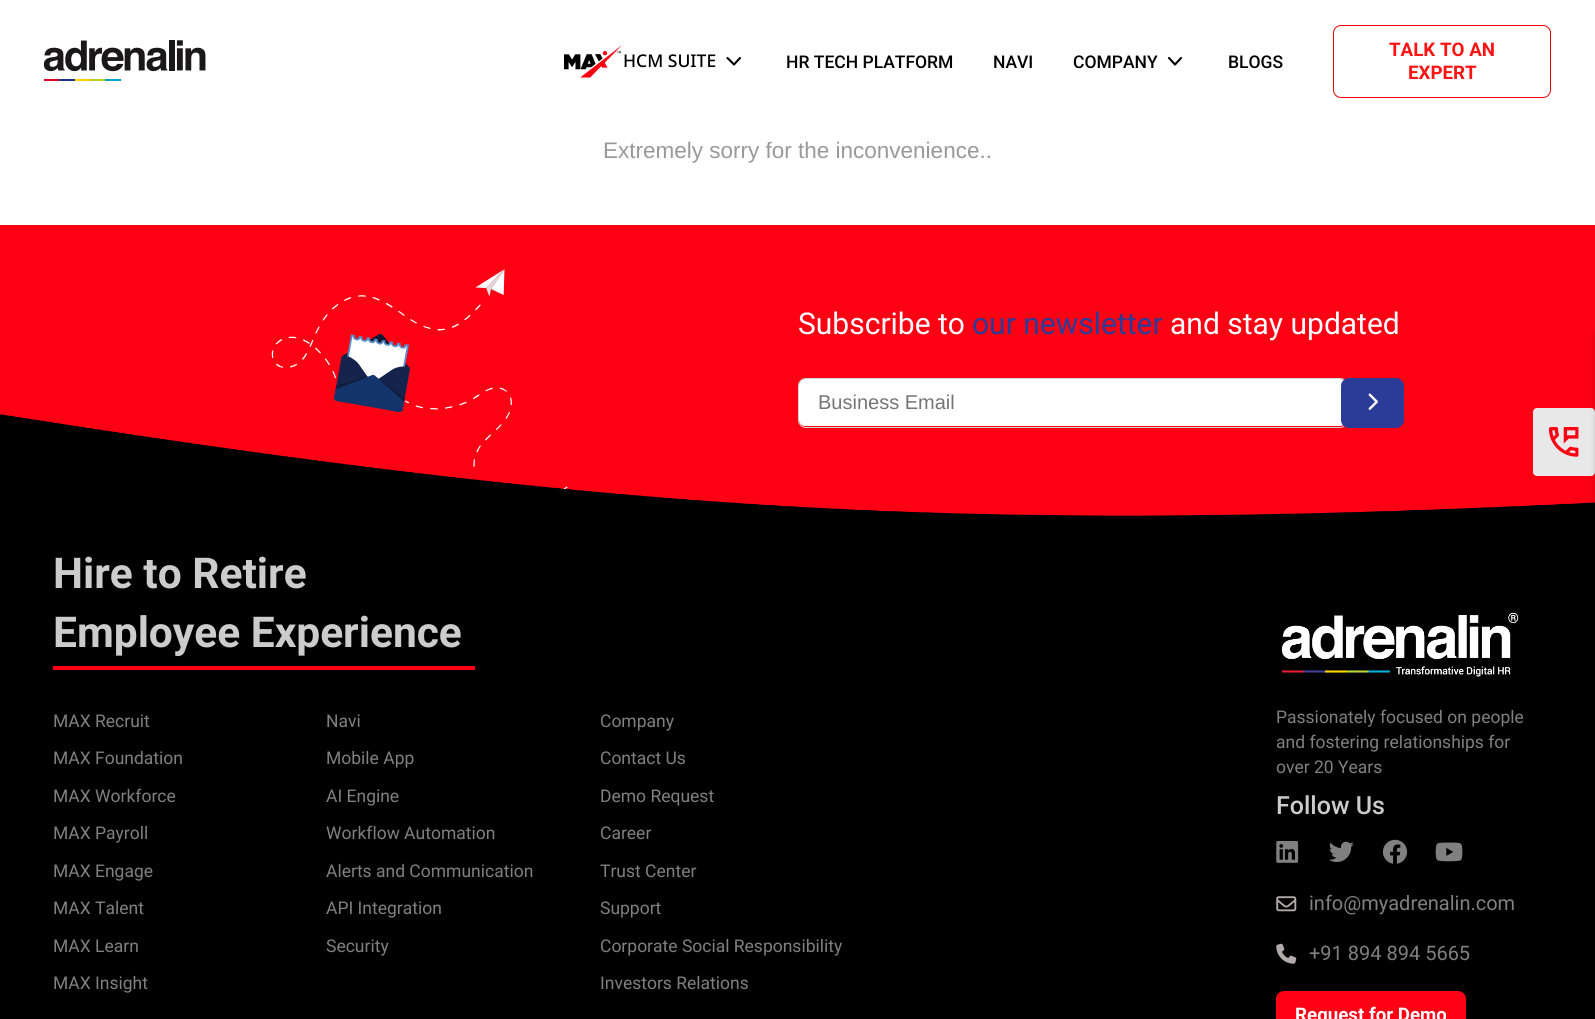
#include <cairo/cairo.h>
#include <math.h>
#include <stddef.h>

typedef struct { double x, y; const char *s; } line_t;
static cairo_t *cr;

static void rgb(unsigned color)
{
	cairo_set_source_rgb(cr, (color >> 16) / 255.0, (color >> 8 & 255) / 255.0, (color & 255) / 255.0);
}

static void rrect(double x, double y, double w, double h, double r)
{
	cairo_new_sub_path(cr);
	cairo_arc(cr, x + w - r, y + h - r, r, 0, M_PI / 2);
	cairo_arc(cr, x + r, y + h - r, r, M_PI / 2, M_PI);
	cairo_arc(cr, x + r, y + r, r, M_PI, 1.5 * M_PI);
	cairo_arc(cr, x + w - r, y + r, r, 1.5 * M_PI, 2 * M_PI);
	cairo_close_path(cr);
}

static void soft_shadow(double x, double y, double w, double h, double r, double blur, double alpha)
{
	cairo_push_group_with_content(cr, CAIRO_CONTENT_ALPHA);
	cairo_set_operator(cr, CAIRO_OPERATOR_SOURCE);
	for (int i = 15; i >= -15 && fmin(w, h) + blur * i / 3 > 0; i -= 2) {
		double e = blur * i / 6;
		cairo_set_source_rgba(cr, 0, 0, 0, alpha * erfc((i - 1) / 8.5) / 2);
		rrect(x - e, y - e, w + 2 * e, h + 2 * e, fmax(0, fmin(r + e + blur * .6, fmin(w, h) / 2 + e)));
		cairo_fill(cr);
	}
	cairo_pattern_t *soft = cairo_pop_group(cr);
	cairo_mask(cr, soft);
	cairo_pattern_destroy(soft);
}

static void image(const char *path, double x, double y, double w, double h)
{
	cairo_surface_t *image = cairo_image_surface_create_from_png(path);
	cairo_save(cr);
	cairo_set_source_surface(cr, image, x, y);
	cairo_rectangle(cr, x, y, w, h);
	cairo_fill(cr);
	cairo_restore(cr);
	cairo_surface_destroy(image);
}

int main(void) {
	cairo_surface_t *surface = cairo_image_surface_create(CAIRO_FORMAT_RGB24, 1595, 1019);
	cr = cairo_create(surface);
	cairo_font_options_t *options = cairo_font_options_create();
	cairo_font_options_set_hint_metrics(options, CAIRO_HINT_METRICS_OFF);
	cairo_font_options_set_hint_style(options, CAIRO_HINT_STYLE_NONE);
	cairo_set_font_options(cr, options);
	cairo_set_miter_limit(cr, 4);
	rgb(0xffffff);
	cairo_paint(cr);
	image("img/1.png", 44, 40, 162, 41);
	image("img/2.png", 564, 45, 58, 33);
	cairo_new_path(cr);
	cairo_move_to(cr, 727.5, 58);
	cairo_line_to(cr, 734, 64.5);
	cairo_line_to(cr, 740, 58);
	rgb(0x000000);
	cairo_set_line_width(cr, 2.1);
	cairo_set_line_cap(cr, CAIRO_LINE_CAP_ROUND);
	cairo_set_line_join(cr, CAIRO_LINE_JOIN_ROUND);
	cairo_stroke(cr);
	cairo_new_path(cr);
	cairo_move_to(cr, 1169, 58);
	cairo_line_to(cr, 1175, 64.5);
	cairo_line_to(cr, 1181, 58);
	cairo_stroke(cr);
	rrect(1333.5, 25.5, 217, 72, 7.5);
	rgb(0xf40000);
	cairo_set_line_width(cr, 1);
	cairo_set_line_cap(cr, CAIRO_LINE_CAP_BUTT);
	cairo_set_line_join(cr, CAIRO_LINE_JOIN_MITER);
	cairo_stroke(cr);
	rgb(0xfd0014);
	cairo_rectangle(cr, 0, 225, 1595, 291);
	cairo_fill(cr);
	image("img/3.png", 271, 269, 297, 221);
	image("img/5.png", 0, 414, 1595, 105);
	rgb(0xffffff);
	rrect(799, 379, 547, 47, 6);
	cairo_fill(cr);
	rrect(798.5, 378.5, 549, 49, 7.5);
	rgb(0xced4da);
	cairo_stroke(cr);
	rgb(0x2a3c98);
	rrect(1341, 378, 63, 50, 8);
	cairo_fill(cr);
	image("img/4.png", 1368, 393, 10, 17);
	rgb(0x000000);
	cairo_rectangle(cr, 0, 519, 1595, 500);
	cairo_fill(cr);
	rgb(0xe8e8e8);
	rrect(1533, 408, 62, 68, 4);
	cairo_fill(cr);
	rgb(0x000000);
	soft_shadow(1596, 331, 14, 673, 6, 3, 0.2);
	image("img/6.png", 1549, 427, 30, 30);
	rgb(0xfd0014);
	cairo_rectangle(cr, 53, 666, 422, 4);
	cairo_fill(cr);
	image("img/7.png", 1281, 612, 238, 65);
	image("img/8.png", 1276, 840, 23, 23);
	image("img/9.png", 1329, 841, 25, 21);
	image("img/10.png", 1382, 839, 26, 25);
	image("img/11.png", 1435, 842, 28, 20);
	image("img/12.png", 1276, 896, 21, 16);
	image("img/13.png", 1276, 943, 21, 21);
	rrect(1276, 991, 190, 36, 8);
	cairo_fill(cr);
	cairo_select_font_face(cr, "Noto Sans Medium", CAIRO_FONT_SLANT_NORMAL, CAIRO_FONT_WEIGHT_NORMAL);
	cairo_set_font_size(cr, 17.5);
	rgb(0x000000);
	cairo_move_to(cr, 623, 67);
	cairo_show_text(cr, "HCM SUITE");
	cairo_select_font_face(cr, "Roboto Medium", CAIRO_FONT_SLANT_NORMAL, CAIRO_FONT_WEIGHT_NORMAL);
	{
		static const line_t items[] = {
			{786, 68, "HR TECH PLATFORM"},
			{993, 68, "NAVI"},
			{1073, 68, "COMPANY"},
			{1228, 68, "BLOGS"},
		};
		for (size_t i = 0; i < sizeof items / sizeof *items; i++) {
			cairo_move_to(cr, items[i].x, items[i].y);
			cairo_show_text(cr, items[i].s);
		}
	}
	cairo_select_font_face(cr, "Roboto", CAIRO_FONT_SLANT_NORMAL, CAIRO_FONT_WEIGHT_BOLD);
	cairo_set_font_size(cr, 18.75);
	rgb(0xff1313);
	cairo_move_to(cr, 1389, 56);
	cairo_show_text(cr, "TALK TO AN");
	cairo_move_to(cr, 1408, 79);
	cairo_show_text(cr, "EXPERT");
	cairo_select_font_face(cr, "Liberation Sans", CAIRO_FONT_SLANT_NORMAL, CAIRO_FONT_WEIGHT_NORMAL);
	cairo_set_font_size(cr, 22.5);
	rgb(0x999999);
	cairo_move_to(cr, 603, 158);
	cairo_show_text(cr, "Extremely sorry for the inconvenience..");
	cairo_select_font_face(cr, "Roboto", CAIRO_FONT_SLANT_NORMAL, CAIRO_FONT_WEIGHT_NORMAL);
	cairo_set_font_size(cr, 30);
	rgb(0xffffff);
	cairo_move_to(cr, 798, 334);
	cairo_show_text(cr, "Subscribe to");
	rgb(0x2a3c98);
	cairo_move_to(cr, 972, 334);
	cairo_show_text(cr, "our newsletter");
	rgb(0xffffff);
	cairo_move_to(cr, 1170, 334);
	cairo_show_text(cr, "and stay updated");
	cairo_select_font_face(cr, "Liberation Sans", CAIRO_FONT_SLANT_NORMAL, CAIRO_FONT_WEIGHT_NORMAL);
	cairo_set_font_size(cr, 20);
	rgb(0x757575);
	cairo_move_to(cr, 818, 409);
	cairo_show_text(cr, "Business Email");
	cairo_select_font_face(cr, "Roboto", CAIRO_FONT_SLANT_NORMAL, CAIRO_FONT_WEIGHT_BOLD);
	cairo_set_font_size(cr, 42.5);
	rgb(0xcccccc);
	cairo_move_to(cr, 53, 588);
	cairo_show_text(cr, "Hire to Retire");
	cairo_move_to(cr, 53, 647);
	cairo_show_text(cr, "Employee Experience");
	cairo_select_font_face(cr, "Roboto", CAIRO_FONT_SLANT_NORMAL, CAIRO_FONT_WEIGHT_NORMAL);
	cairo_set_font_size(cr, 17.5);
	rgb(0x808080);
	{
		static const line_t items[] = {
			{53, 727, "MAX Recruit"},
			{53, 764, "MAX Foundation"},
			{53, 802, "MAX Workforce"},
			{53, 839, "MAX Payroll"},
			{53, 877, "MAX Engage"},
			{53, 914, "MAX Talent"},
			{53, 952, "MAX Learn"},
			{53, 989, "MAX Insight"},
			{326, 727, "Navi"},
			{326, 764, "Mobile App"},
			{326, 802, "AI Engine"},
			{326, 839, "Workflow Automation"},
			{326, 877, "Alerts and Communication"},
			{326, 914, "API Integration"},
			{326, 952, "Security"},
			{600, 727, "Company"},
			{600, 764, "Contact Us"},
			{600, 802, "Demo Request"},
			{600, 839, "Career"},
			{600, 877, "Trust Center"},
			{600, 914, "Support"},
			{600, 952, "Corporate Social Responsibility"},
			{600, 989, "Investors Relations"},
			{1276, 723, "Passionately focused on people"},
			{1276, 748, "and fostering relationships for"},
			{1276, 773, "over 20 Years"},
		};
		for (size_t i = 0; i < sizeof items / sizeof *items; i++) {
			cairo_move_to(cr, items[i].x, items[i].y);
			cairo_show_text(cr, items[i].s);
		}
	}
	cairo_select_font_face(cr, "Roboto Medium", CAIRO_FONT_SLANT_NORMAL, CAIRO_FONT_WEIGHT_NORMAL);
	cairo_set_font_size(cr, 25);
	rgb(0xcccccc);
	cairo_move_to(cr, 1276, 814);
	cairo_show_text(cr, "Follow Us");
	cairo_select_font_face(cr, "Roboto", CAIRO_FONT_SLANT_NORMAL, CAIRO_FONT_WEIGHT_NORMAL);
	cairo_set_font_size(cr, 20);
	rgb(0x808080);
	cairo_move_to(cr, 1309, 910);
	cairo_show_text(cr, "info@myadrenalin.com");
	cairo_move_to(cr, 1309, 960);
	cairo_show_text(cr, "+91 894 894 5665");
	cairo_select_font_face(cr, "Roboto", CAIRO_FONT_SLANT_NORMAL, CAIRO_FONT_WEIGHT_BOLD);
	cairo_set_font_size(cr, 18.75);
	rgb(0xffffff);
	cairo_move_to(cr, 1295, 1021);
	cairo_show_text(cr, "Request for Demo");
	cairo_surface_write_to_png(surface, "page.png");
	cairo_font_options_destroy(options);
	cairo_destroy(cr);
	cairo_surface_destroy(surface);
	return 0;
}
